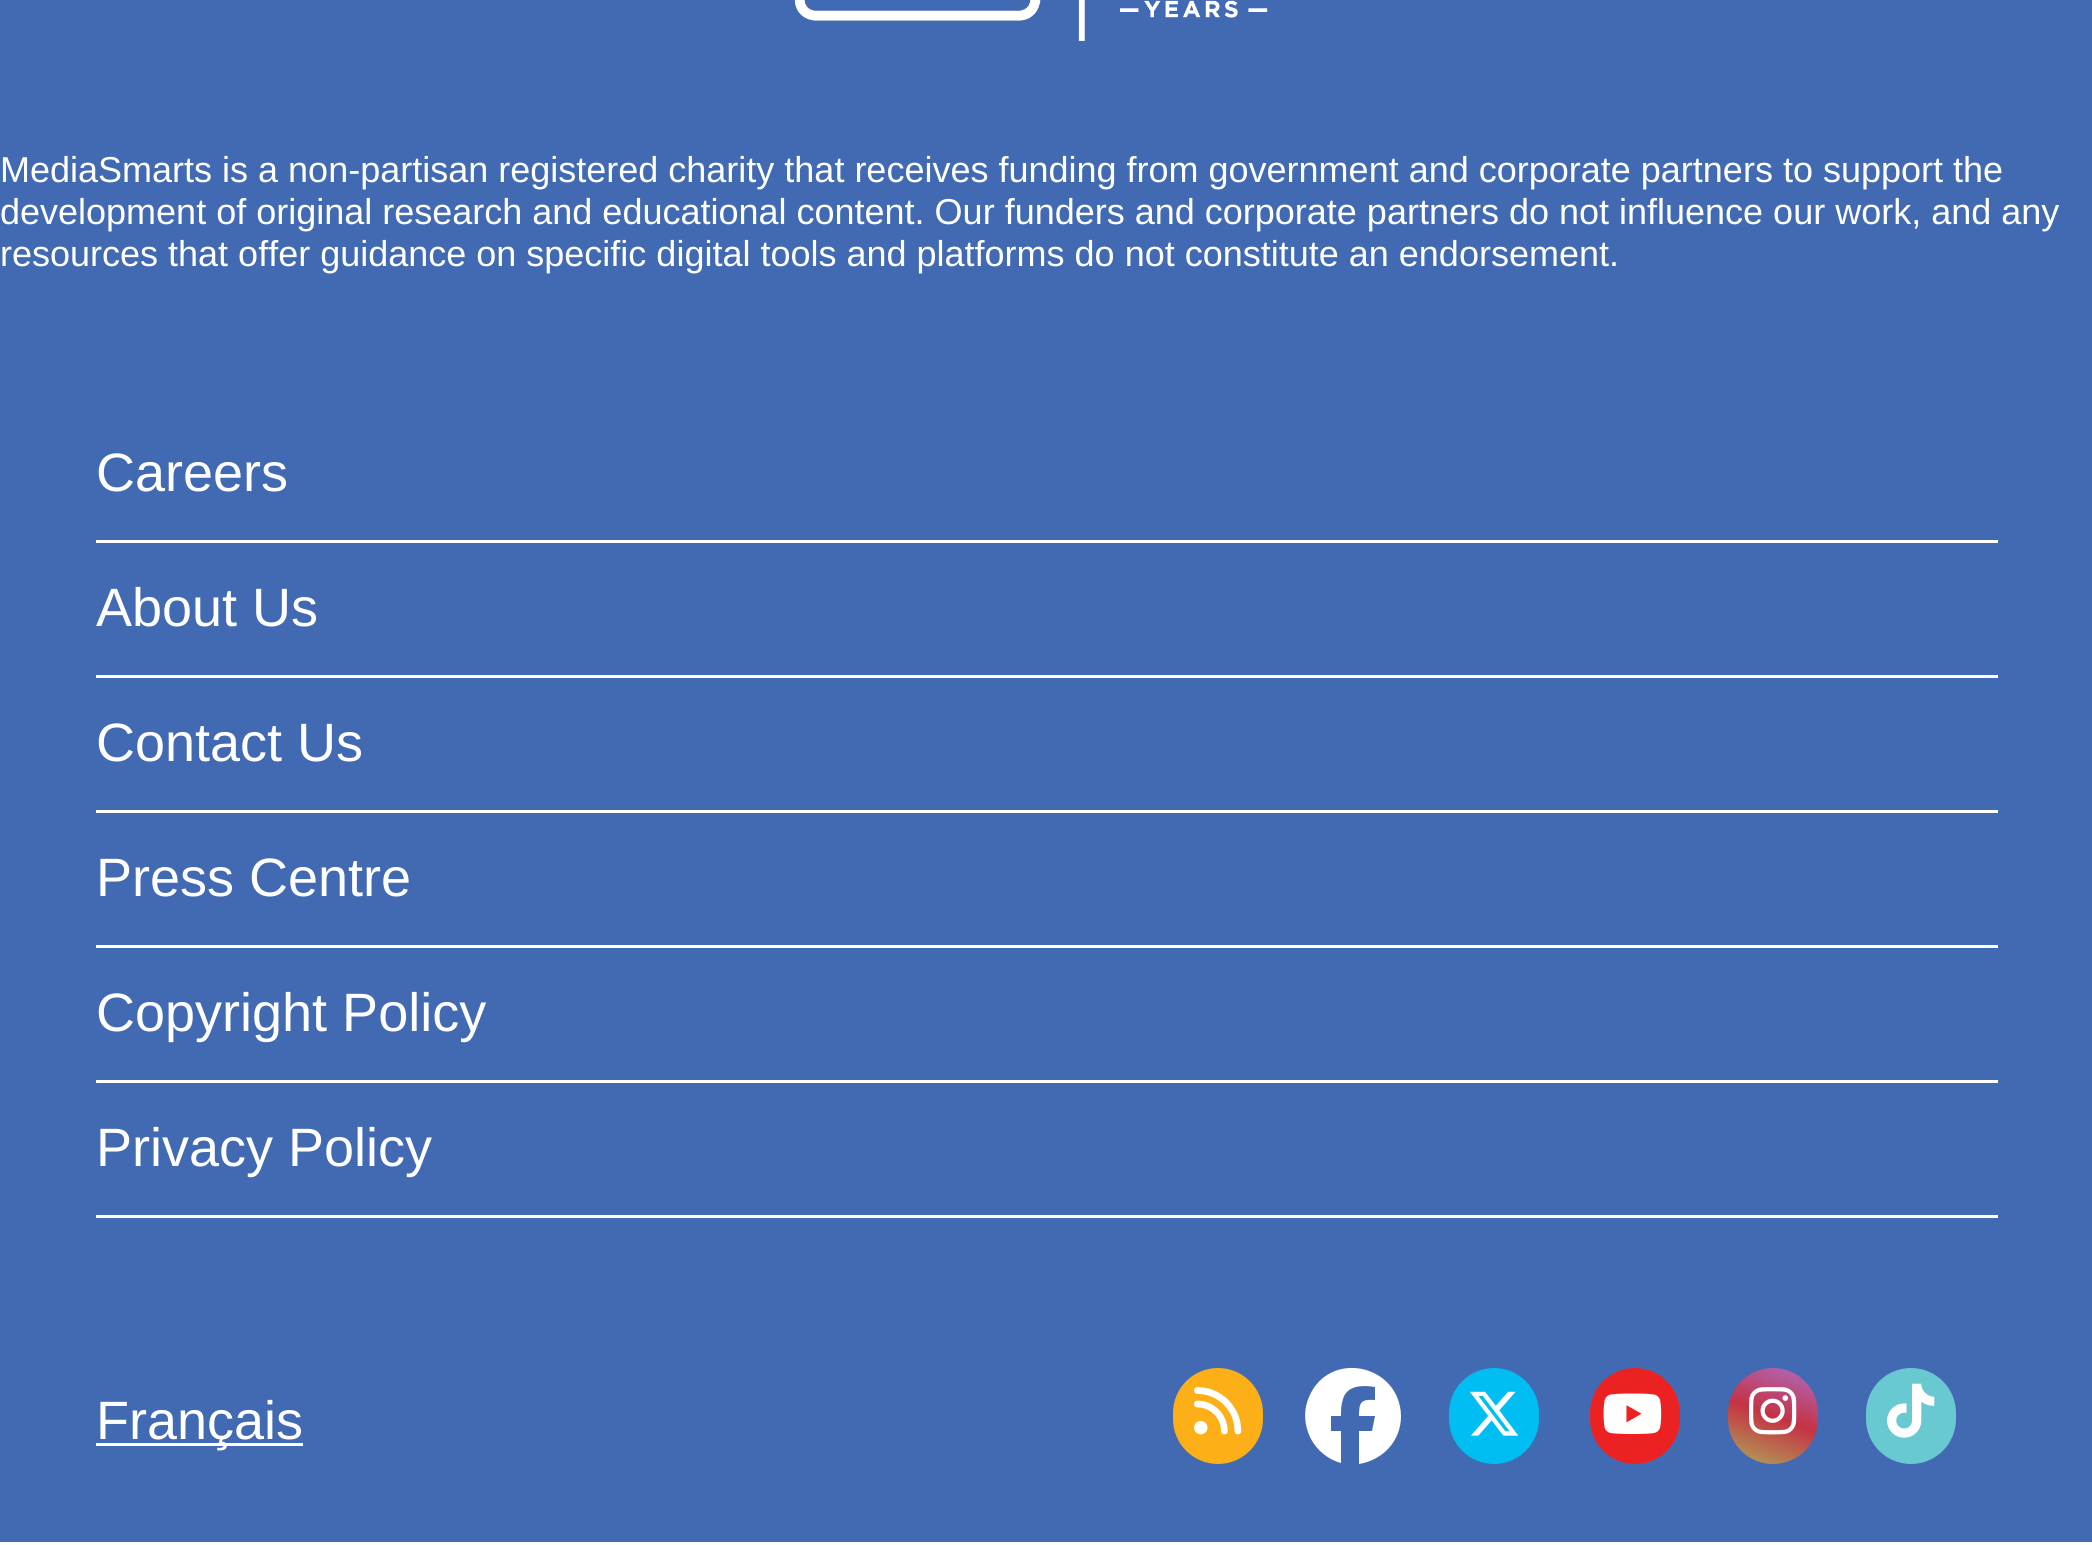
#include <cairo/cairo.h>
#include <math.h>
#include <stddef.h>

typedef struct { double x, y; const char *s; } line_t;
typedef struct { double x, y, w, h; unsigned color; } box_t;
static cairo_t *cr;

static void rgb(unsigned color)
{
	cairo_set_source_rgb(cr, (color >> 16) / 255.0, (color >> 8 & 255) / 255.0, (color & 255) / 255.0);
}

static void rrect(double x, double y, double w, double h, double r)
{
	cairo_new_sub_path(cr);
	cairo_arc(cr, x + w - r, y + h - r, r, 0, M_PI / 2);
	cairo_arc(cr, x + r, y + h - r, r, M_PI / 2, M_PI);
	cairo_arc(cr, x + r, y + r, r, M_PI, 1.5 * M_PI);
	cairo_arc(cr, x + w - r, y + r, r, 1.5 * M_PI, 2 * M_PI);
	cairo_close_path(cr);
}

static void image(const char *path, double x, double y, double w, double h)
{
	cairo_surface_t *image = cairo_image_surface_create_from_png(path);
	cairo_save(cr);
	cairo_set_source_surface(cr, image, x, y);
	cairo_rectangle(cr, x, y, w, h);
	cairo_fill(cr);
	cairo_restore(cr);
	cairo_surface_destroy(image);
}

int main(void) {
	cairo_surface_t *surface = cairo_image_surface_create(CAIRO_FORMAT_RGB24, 2092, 1545);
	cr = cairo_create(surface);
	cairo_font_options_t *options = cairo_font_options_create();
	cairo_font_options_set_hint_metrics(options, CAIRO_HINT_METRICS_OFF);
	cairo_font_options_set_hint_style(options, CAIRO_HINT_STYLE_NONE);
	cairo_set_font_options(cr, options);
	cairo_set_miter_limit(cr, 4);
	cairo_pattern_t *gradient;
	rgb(0xffffff);
	cairo_paint(cr);
	rgb(0x426ab3);
	cairo_rectangle(cr, 0, 0, 2092, 1542);
	cairo_fill(cr);
	image("img/1.png", 794, 0, 474, 41);
	{
		static const box_t items[] = {
			{96, 540, 1902, 3, 0xffffff},
			{96, 675, 1902, 3, 0xffffff},
			{96, 810, 1902, 3, 0xffffff},
			{96, 945, 1902, 3, 0xffffff},
			{96, 1080, 1902, 3, 0xffffff},
			{96, 1215, 1902, 3, 0xffffff},
			{96, 1443, 207, 3, 0xffffff},
		};
		for (size_t i = 0; i < sizeof items / sizeof *items; i++) {
			rgb(items[i].color);
			cairo_rectangle(cr, items[i].x, items[i].y, items[i].w, items[i].h);
			cairo_fill(cr);
		}
	}
	rgb(0xfcaf17);
	rrect(1173, 1368, 90, 96, 45);
	cairo_fill(cr);
	image("img/2.png", 1194, 1387, 48, 48);
	rgb(0xffffff);
	cairo_new_path(cr);
	cairo_move_to(cr, 1401, 1416);
	cairo_curve_to(cr, 1400, 1364, 1329, 1349, 1309, 1397);
	cairo_curve_to(cr, 1304, 1408, 1304, 1421, 1308, 1432);
	cairo_curve_to(cr, 1313, 1447, 1326, 1459, 1341, 1463);
	cairo_line_to(cr, 1341, 1431);
	cairo_line_to(cr, 1331, 1431);
	cairo_line_to(cr, 1331, 1416);
	cairo_line_to(cr, 1341, 1416);
	cairo_curve_to(cr, 1341, 1410, 1341, 1405, 1343, 1399);
	cairo_curve_to(cr, 1347, 1385, 1363, 1385, 1375, 1387);
	cairo_line_to(cr, 1375, 1400);
	cairo_curve_to(cr, 1361, 1399, 1359, 1402, 1359, 1416);
	cairo_line_to(cr, 1375, 1416);
	cairo_line_to(cr, 1372, 1431);
	cairo_line_to(cr, 1359, 1431);
	cairo_line_to(cr, 1359, 1464);
	cairo_curve_to(cr, 1383, 1460, 1401, 1441, 1401, 1416);
	cairo_close_path(cr);
	cairo_fill(cr);
	rgb(0x00bdf2);
	rrect(1449, 1368, 90, 96, 45);
	cairo_fill(cr);
	image("img/3.png", 1470, 1391, 49, 45);
	rgb(0xec2121);
	rrect(1590, 1368, 90, 96, 45);
	cairo_fill(cr);
	image("img/4.png", 1603, 1393, 59, 41);
	gradient = cairo_pattern_create_linear(1794, 1359, 1752, 1473);
	cairo_pattern_add_color_stop_rgba(gradient, 0.12, 0.702, 0.373, 0.651, 1);
	cairo_pattern_add_color_stop_rgba(gradient, 0.5, 0.773, 0.196, 0.263, 1);
	cairo_pattern_add_color_stop_rgba(gradient, 0.91, 0.698, 0.576, 0.333, 1);
	cairo_set_source(cr, gradient);
	cairo_pattern_destroy(gradient);
	rrect(1728, 1368, 90, 96, 45);
	cairo_fill(cr);
	image("img/5.png", 1749, 1387, 48, 48);
	rgb(0x69c9d0);
	rrect(1866, 1368, 90, 96, 45);
	cairo_fill(cr);
	image("img/6.png", 1887, 1383, 48, 55);
	cairo_select_font_face(cr, "Liberation Sans", CAIRO_FONT_SLANT_NORMAL, CAIRO_FONT_WEIGHT_NORMAL);
	cairo_set_font_size(cr, 36);
	rgb(0xffffff);
	{
		static const line_t items[] = {
			{0, 182, "MediaSmarts is a non-partisan registered charity that receives funding from government and corporate partners to support the"},
			{0, 224, "development of original research and educational content. Our funders and corporate partners do not influence our work, and any"},
			{0, 266, "resources that offer guidance on specific digital tools and platforms do not constitute an endorsement."},
		};
		for (size_t i = 0; i < sizeof items / sizeof *items; i++) {
			cairo_move_to(cr, items[i].x, items[i].y);
			cairo_show_text(cr, items[i].s);
		}
	}
	cairo_set_font_size(cr, 54);
	{
		static const line_t items[] = {
			{96, 491, "Careers"},
			{96, 626, "About Us"},
			{96, 761, "Contact Us"},
			{96, 896, "Press Centre"},
			{96, 1031, "Copyright Policy"},
			{96, 1166, "Privacy Policy"},
			{96, 1439, "Français"},
		};
		for (size_t i = 0; i < sizeof items / sizeof *items; i++) {
			cairo_move_to(cr, items[i].x, items[i].y);
			cairo_show_text(cr, items[i].s);
		}
	}
	cairo_surface_write_to_png(surface, "page.png");
	cairo_font_options_destroy(options);
	cairo_destroy(cr);
	cairo_surface_destroy(surface);
	return 0;
}
